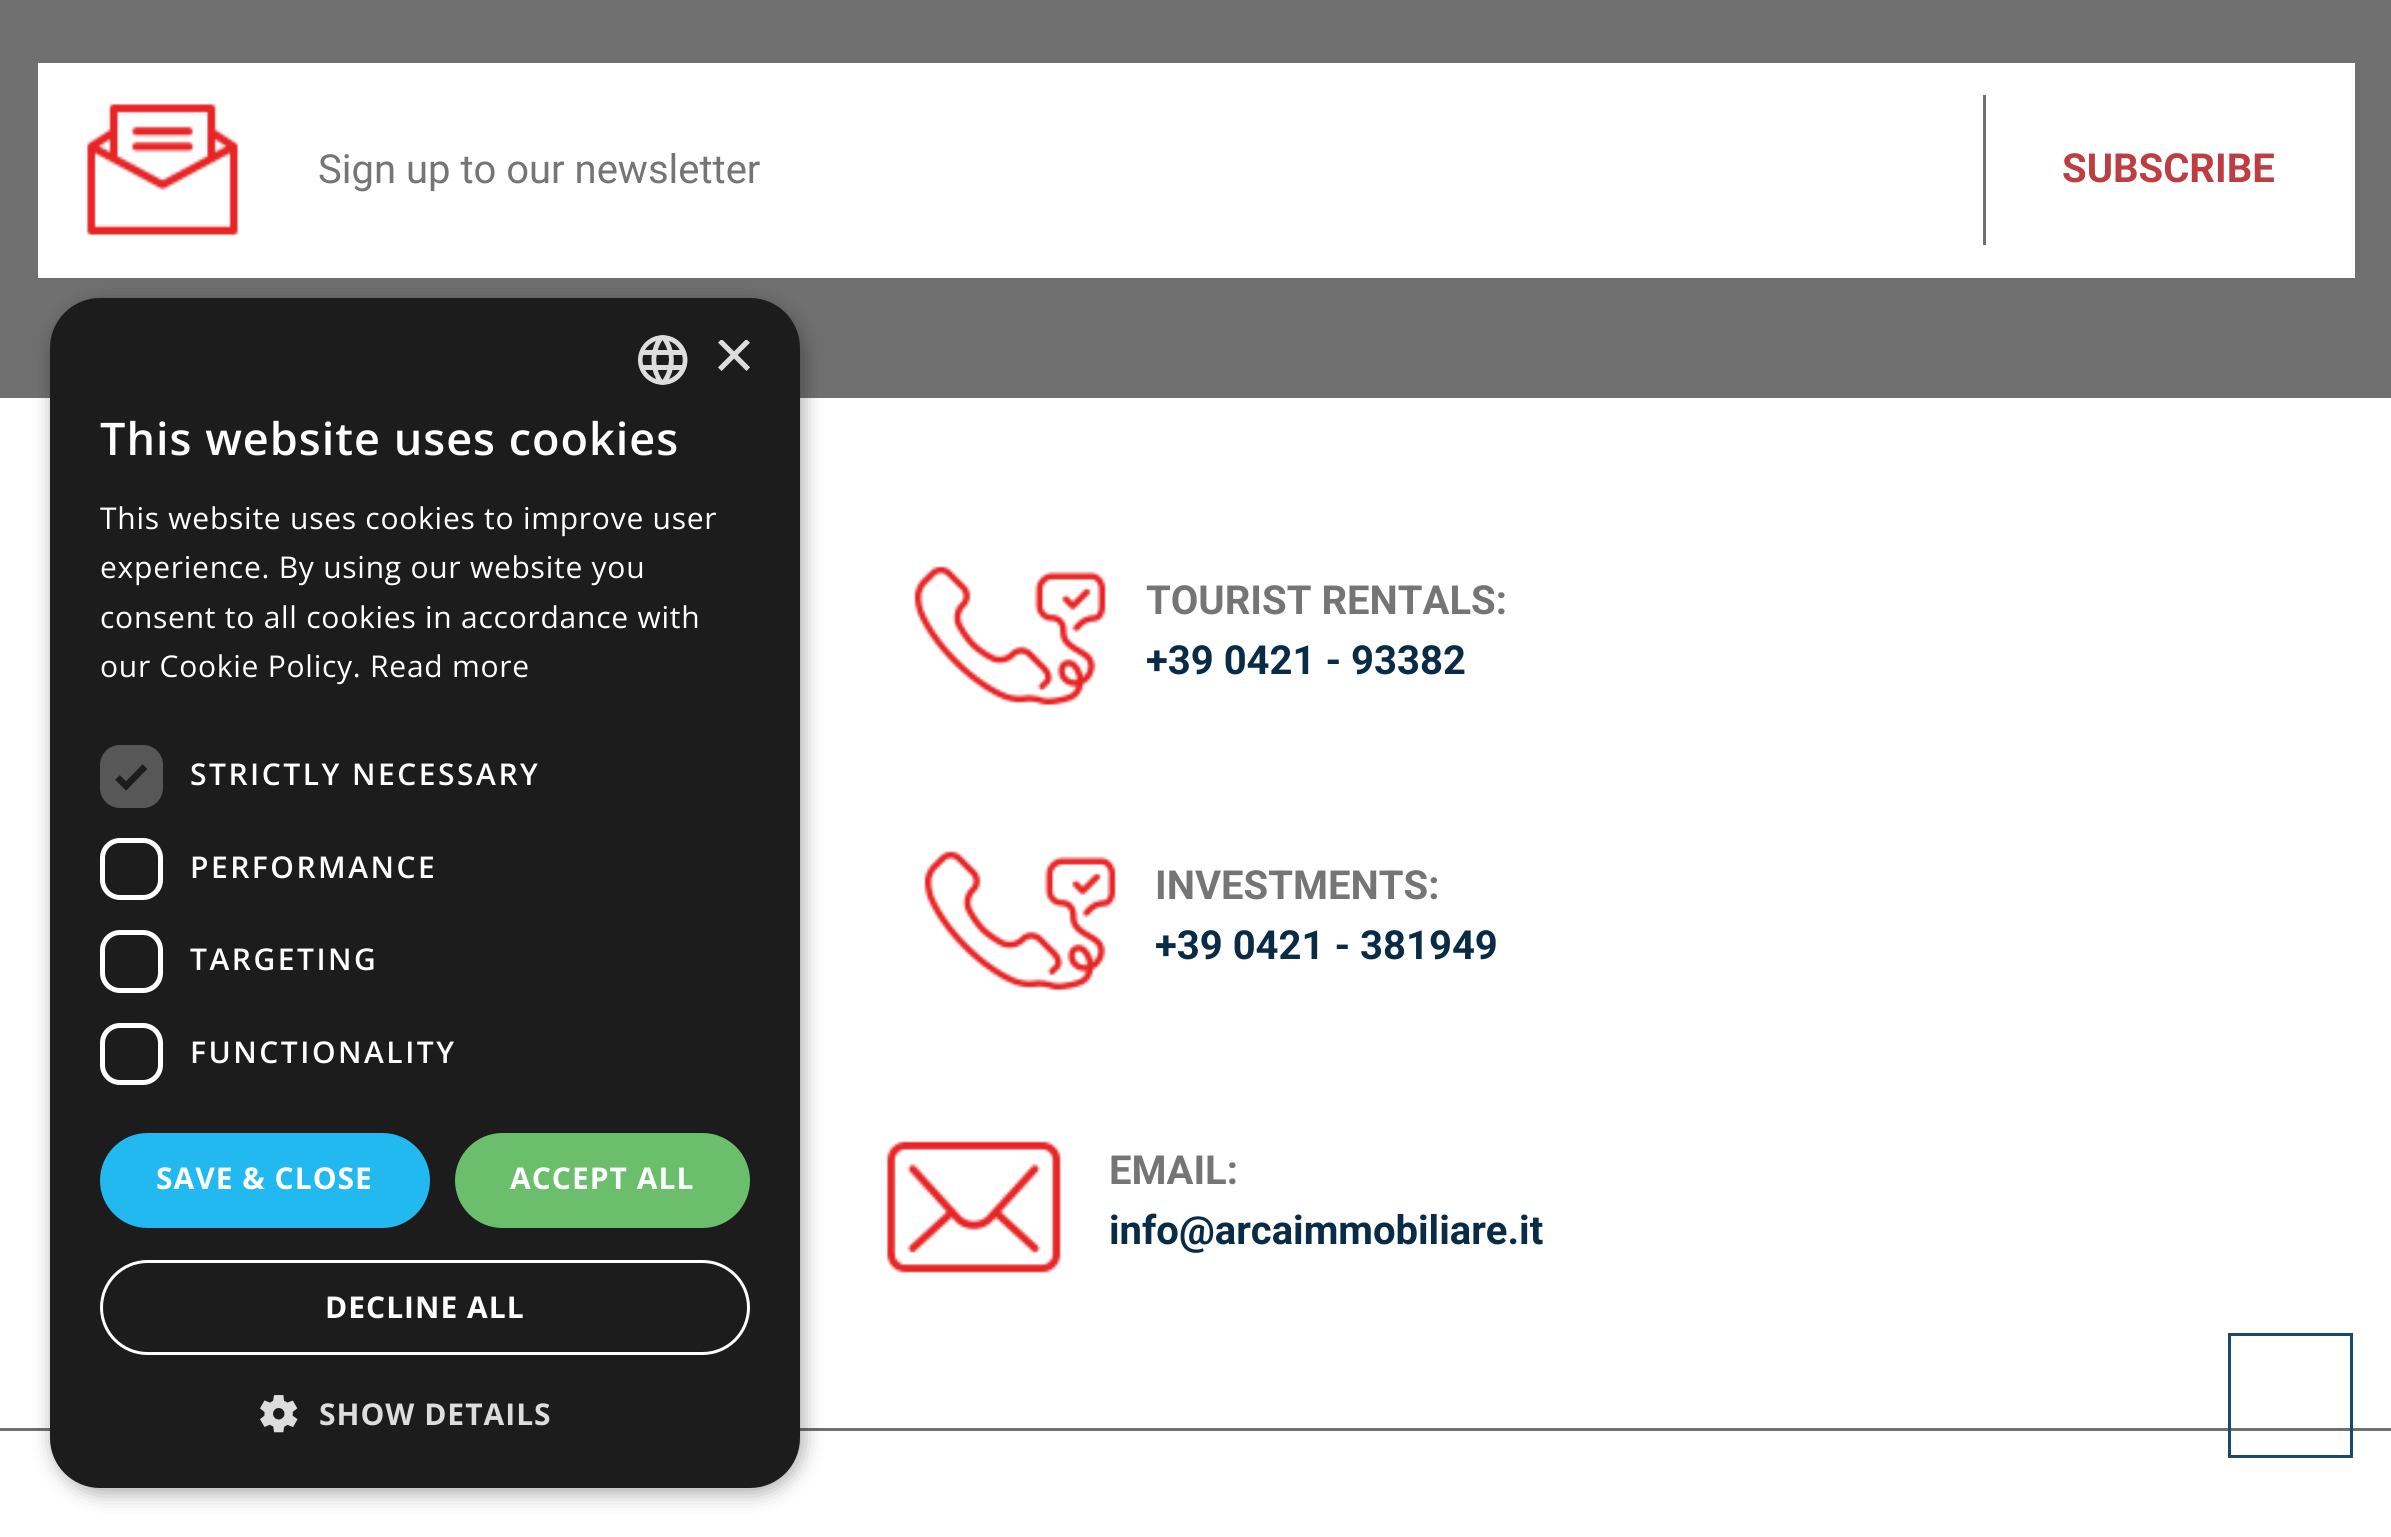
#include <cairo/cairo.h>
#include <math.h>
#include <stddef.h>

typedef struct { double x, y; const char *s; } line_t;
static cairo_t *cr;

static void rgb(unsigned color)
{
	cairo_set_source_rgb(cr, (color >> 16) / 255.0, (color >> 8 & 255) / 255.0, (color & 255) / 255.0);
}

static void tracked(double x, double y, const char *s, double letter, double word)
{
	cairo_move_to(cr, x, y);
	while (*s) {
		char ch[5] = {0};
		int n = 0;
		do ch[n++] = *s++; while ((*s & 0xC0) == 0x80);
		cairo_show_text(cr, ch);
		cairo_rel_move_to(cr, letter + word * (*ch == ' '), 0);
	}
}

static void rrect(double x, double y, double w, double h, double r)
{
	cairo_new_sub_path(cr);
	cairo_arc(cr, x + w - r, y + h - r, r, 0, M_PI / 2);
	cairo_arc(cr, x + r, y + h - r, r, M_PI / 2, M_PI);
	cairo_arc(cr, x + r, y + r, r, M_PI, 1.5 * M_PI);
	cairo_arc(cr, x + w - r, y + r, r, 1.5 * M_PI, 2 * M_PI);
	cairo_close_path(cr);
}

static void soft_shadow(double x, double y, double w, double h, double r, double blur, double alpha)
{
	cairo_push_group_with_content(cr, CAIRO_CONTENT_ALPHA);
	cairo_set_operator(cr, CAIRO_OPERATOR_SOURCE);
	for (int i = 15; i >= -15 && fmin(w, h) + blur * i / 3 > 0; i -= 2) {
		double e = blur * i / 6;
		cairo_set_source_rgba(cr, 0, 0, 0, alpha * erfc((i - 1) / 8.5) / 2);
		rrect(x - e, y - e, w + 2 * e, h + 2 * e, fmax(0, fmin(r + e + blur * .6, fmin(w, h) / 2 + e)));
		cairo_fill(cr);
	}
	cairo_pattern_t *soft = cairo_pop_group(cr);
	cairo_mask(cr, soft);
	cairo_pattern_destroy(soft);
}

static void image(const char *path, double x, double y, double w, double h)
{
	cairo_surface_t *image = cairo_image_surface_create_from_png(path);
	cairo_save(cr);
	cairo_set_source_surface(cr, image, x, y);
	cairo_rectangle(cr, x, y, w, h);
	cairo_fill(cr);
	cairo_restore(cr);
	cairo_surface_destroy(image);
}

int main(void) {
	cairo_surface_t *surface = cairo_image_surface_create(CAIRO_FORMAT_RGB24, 2391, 1537);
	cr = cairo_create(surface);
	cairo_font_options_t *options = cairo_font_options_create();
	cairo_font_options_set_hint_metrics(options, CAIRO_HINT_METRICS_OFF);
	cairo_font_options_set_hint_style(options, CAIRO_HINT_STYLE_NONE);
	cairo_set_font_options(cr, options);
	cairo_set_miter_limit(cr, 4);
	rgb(0xffffff);
	cairo_paint(cr);
	rgb(0x707070);
	cairo_rectangle(cr, 0, 0, 2391, 398);
	cairo_fill(cr);
	rgb(0xffffff);
	cairo_rectangle(cr, 38, 63, 2317, 215);
	cairo_fill(cr);
	image("img/1.png", 86, 103, 153, 133);
	rgb(0x707070);
	cairo_rectangle(cr, 1983, 95, 3, 150);
	cairo_fill(cr);
	cairo_rectangle(cr, 0, 1428, 2391, 3);
	cairo_fill(cr);
	rgb(0x000000);
	soft_shadow(53, 303, 750, 1190, 50, 10, 0.35);
	rgb(0x1c1c1c);
	rrect(50, 298, 750, 1190, 50);
	cairo_fill(cr);
	image("img/2.png", 638, 335, 50, 50);
	rgb(0x575757);
	rrect(100, 745, 63, 63, 20);
	cairo_fill(cr);
	cairo_new_path(cr);
	cairo_move_to(cr, 117.5, 777.5);
	cairo_line_to(cr, 126, 786);
	cairo_line_to(cr, 145, 766.5);
	rgb(0x1c1c1c);
	cairo_set_line_width(cr, 6.6);
	cairo_stroke(cr);
	rrect(102.5, 840.5, 58, 57, 17.5);
	rgb(0xffffff);
	cairo_set_line_width(cr, 5);
	cairo_stroke(cr);
	rrect(102.5, 932.5, 58, 58, 17.5);
	cairo_stroke(cr);
	rrect(102.5, 1025.5, 58, 57, 17.5);
	cairo_stroke(cr);
	rgb(0x22b8f0);
	rrect(100, 1133, 330, 95, 47.5);
	cairo_fill(cr);
	rgb(0x6bbe6b);
	rrect(455, 1133, 295, 95, 47.5);
	cairo_fill(cr);
	rrect(101.5, 1261.5, 647, 92, 46);
	rgb(0xffffff);
	cairo_set_line_width(cr, 3);
	cairo_stroke(cr);
	image("img/3.png", 260, 1395, 38, 38);
	image("img/4.png", 914, 566, 192, 140);
	image("img/4.png", 924, 851, 192, 140);
	image("img/5.png", 886, 1141, 175, 132);
	cairo_rectangle(cr, 2229.5, 1334.5, 122, 122);
	rgb(0x1b496d);
	cairo_stroke(cr);
	cairo_select_font_face(cr, "Roboto", CAIRO_FONT_SLANT_NORMAL, CAIRO_FONT_WEIGHT_NORMAL);
	cairo_set_font_size(cr, 40);
	rgb(0x757575);
	cairo_move_to(cr, 318, 183);
	cairo_show_text(cr, "Sign up to our newsletter");
	cairo_select_font_face(cr, "Roboto", CAIRO_FONT_SLANT_NORMAL, CAIRO_FONT_WEIGHT_BOLD);
	rgb(0xbc3e41);
	cairo_move_to(cr, 2062, 182);
	cairo_show_text(cr, "SUBSCRIBE");
	cairo_save(cr);
	cairo_rectangle(cr, 713, 340, 37, 38);
	cairo_clip(cr);
	cairo_select_font_face(cr, "Liberation Sans", CAIRO_FONT_SLANT_NORMAL, CAIRO_FONT_WEIGHT_NORMAL);
	cairo_set_font_size(cr, 72);
	rgb(0xdddddd);
	cairo_move_to(cr, 713, 379);
	cairo_show_text(cr, "×");
	cairo_restore(cr);
	cairo_select_font_face(cr, "Open Sans SemiBold", CAIRO_FONT_SLANT_NORMAL, CAIRO_FONT_WEIGHT_NORMAL);
	cairo_set_font_size(cr, 45);
	rgb(0xffffff);
	tracked(100, 455, "This website uses cookies", 1, 0);
	cairo_select_font_face(cr, "Open Sans", CAIRO_FONT_SLANT_NORMAL, CAIRO_FONT_WEIGHT_NORMAL);
	cairo_set_font_size(cr, 30);
	{
		static const line_t items[] = {
			{100, 529, "This website uses cookies to improve user"},
			{100, 578, "experience. By using our website you"},
			{100, 628, "consent to all cookies in accordance with"},
			{100, 677, "our Cookie Policy. Read more"},
		};
		for (size_t i = 0; i < sizeof items / sizeof *items; i++) {
			tracked(items[i].x, items[i].y, items[i].s, 0.75, 0);
		}
	}
	cairo_select_font_face(cr, "Open Sans SemiBold", CAIRO_FONT_SLANT_NORMAL, CAIRO_FONT_WEIGHT_NORMAL);
	{
		static const line_t items[] = {
			{190, 785, "STRICTLY NECESSARY"},
			{190, 878, "PERFORMANCE"},
			{190, 970, "TARGETING"},
			{190, 1063, "FUNCTIONALITY"},
		};
		for (size_t i = 0; i < sizeof items / sizeof *items; i++) {
			tracked(items[i].x, items[i].y, items[i].s, 2.5, 0);
		}
	}
	cairo_select_font_face(cr, "Open Sans", CAIRO_FONT_SLANT_NORMAL, CAIRO_FONT_WEIGHT_BOLD);
	{
		static const line_t items[] = {
			{156, 1189, "SAVE & CLOSE"},
			{510, 1189, "ACCEPT ALL"},
			{325, 1318, "DECLINE ALL"},
		};
		for (size_t i = 0; i < sizeof items / sizeof *items; i++) {
			tracked(items[i].x, items[i].y, items[i].s, 1, 0);
		}
	}
	rgb(0xdddddd);
	tracked(319, 1425, "SHOW DETAILS", 1, 0);
	cairo_select_font_face(cr, "Roboto", CAIRO_FONT_SLANT_NORMAL, CAIRO_FONT_WEIGHT_BOLD);
	cairo_set_font_size(cr, 40);
	rgb(0x757575);
	cairo_move_to(cr, 1146, 614);
	cairo_show_text(cr, "TOURIST RENTALS:");
	rgb(0x0a2b46);
	cairo_move_to(cr, 1146, 674);
	cairo_show_text(cr, "+39 0421 - 93382");
	rgb(0x757575);
	cairo_move_to(cr, 1155, 899);
	cairo_show_text(cr, "INVESTMENTS:");
	rgb(0x0a2b46);
	cairo_move_to(cr, 1155, 959);
	cairo_show_text(cr, "+39 0421 - 381949");
	rgb(0x757575);
	cairo_move_to(cr, 1109, 1184);
	cairo_show_text(cr, "EMAIL:");
	rgb(0x0a2b46);
	cairo_move_to(cr, 1109, 1244);
	cairo_show_text(cr, "info@arcaimmobiliare.it");
	cairo_surface_write_to_png(surface, "page.png");
	cairo_font_options_destroy(options);
	cairo_destroy(cr);
	cairo_surface_destroy(surface);
	return 0;
}
